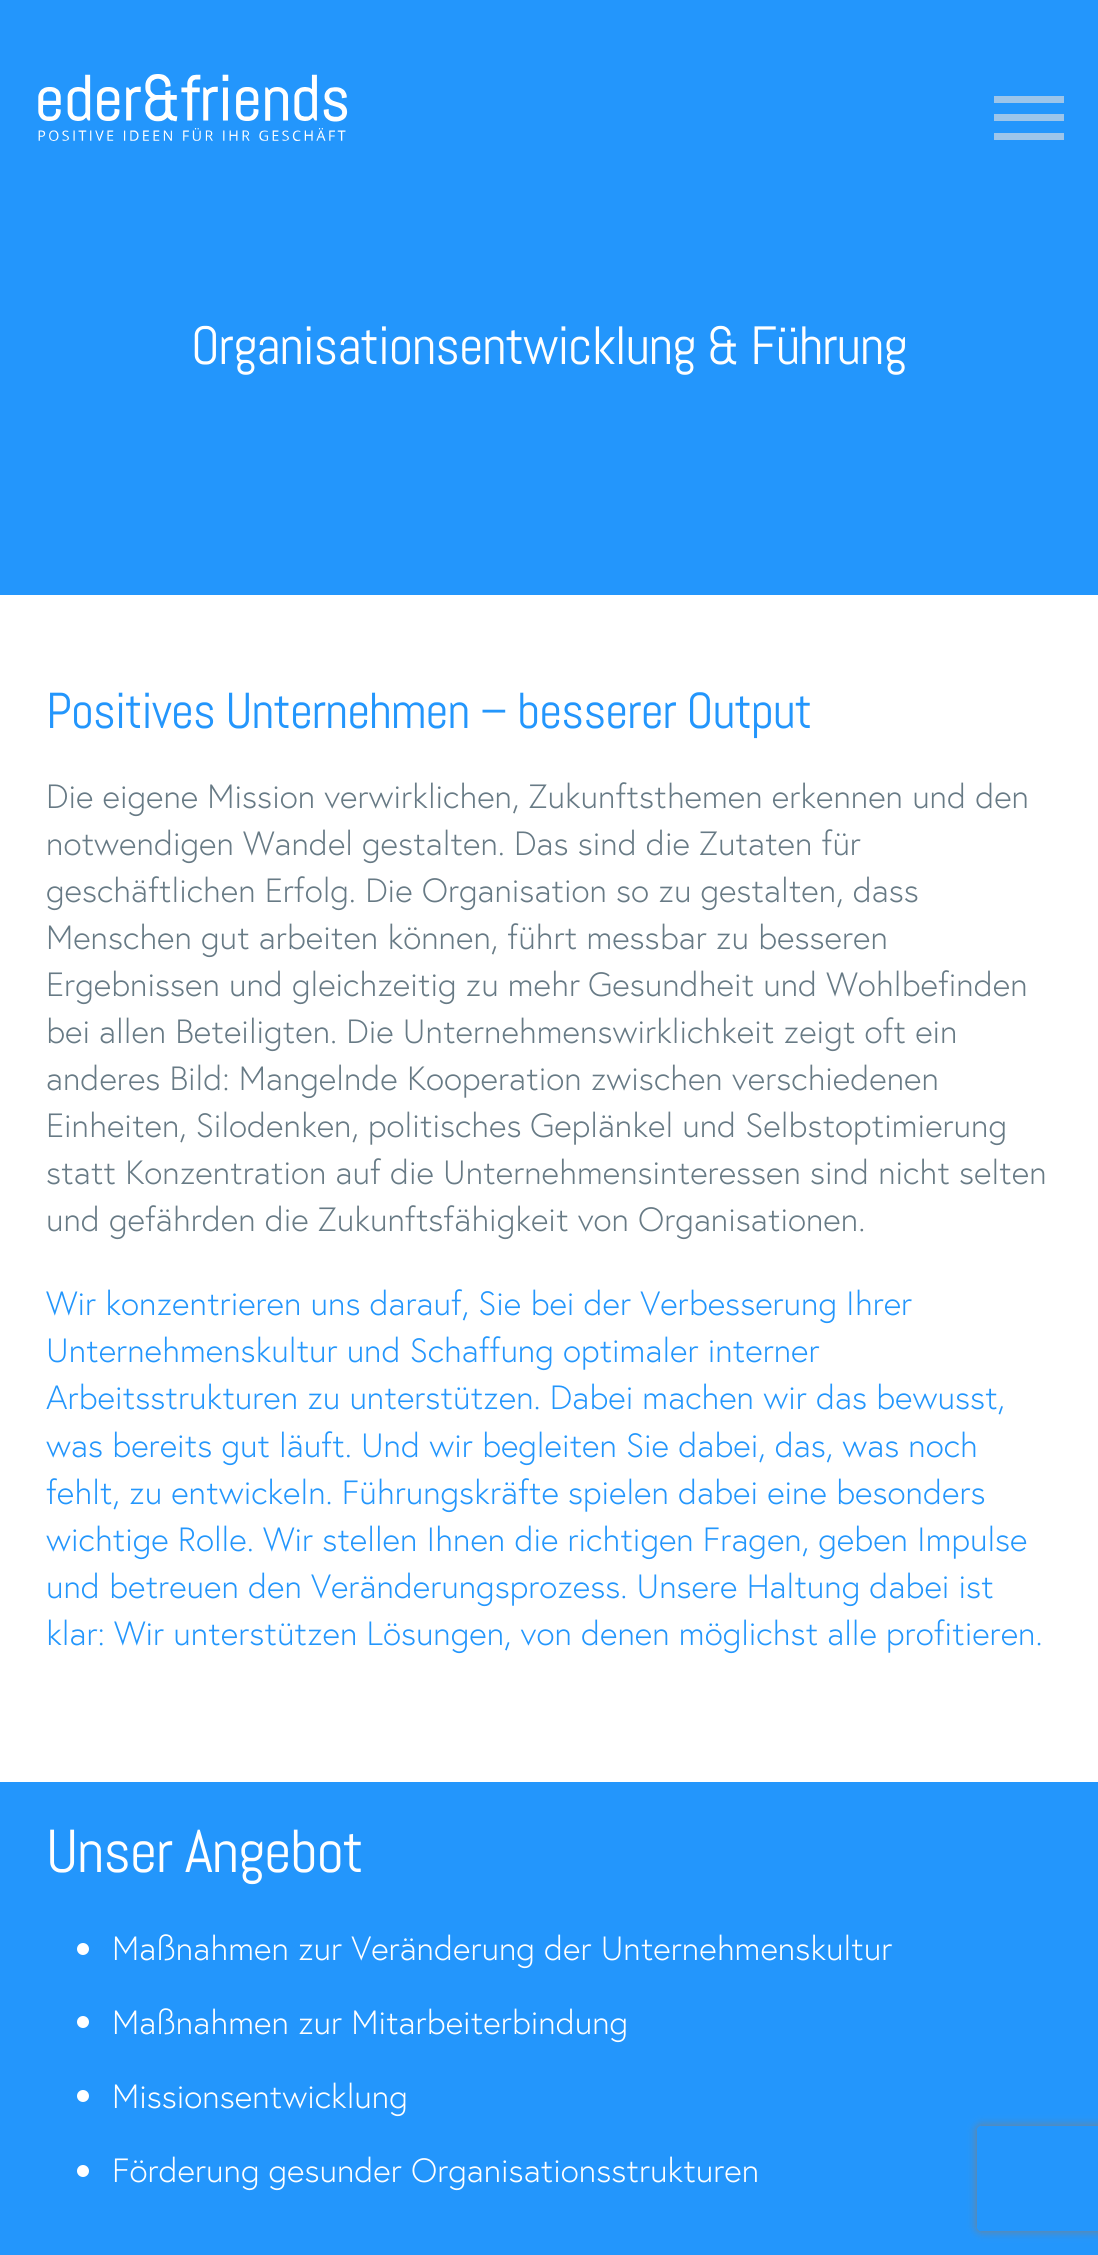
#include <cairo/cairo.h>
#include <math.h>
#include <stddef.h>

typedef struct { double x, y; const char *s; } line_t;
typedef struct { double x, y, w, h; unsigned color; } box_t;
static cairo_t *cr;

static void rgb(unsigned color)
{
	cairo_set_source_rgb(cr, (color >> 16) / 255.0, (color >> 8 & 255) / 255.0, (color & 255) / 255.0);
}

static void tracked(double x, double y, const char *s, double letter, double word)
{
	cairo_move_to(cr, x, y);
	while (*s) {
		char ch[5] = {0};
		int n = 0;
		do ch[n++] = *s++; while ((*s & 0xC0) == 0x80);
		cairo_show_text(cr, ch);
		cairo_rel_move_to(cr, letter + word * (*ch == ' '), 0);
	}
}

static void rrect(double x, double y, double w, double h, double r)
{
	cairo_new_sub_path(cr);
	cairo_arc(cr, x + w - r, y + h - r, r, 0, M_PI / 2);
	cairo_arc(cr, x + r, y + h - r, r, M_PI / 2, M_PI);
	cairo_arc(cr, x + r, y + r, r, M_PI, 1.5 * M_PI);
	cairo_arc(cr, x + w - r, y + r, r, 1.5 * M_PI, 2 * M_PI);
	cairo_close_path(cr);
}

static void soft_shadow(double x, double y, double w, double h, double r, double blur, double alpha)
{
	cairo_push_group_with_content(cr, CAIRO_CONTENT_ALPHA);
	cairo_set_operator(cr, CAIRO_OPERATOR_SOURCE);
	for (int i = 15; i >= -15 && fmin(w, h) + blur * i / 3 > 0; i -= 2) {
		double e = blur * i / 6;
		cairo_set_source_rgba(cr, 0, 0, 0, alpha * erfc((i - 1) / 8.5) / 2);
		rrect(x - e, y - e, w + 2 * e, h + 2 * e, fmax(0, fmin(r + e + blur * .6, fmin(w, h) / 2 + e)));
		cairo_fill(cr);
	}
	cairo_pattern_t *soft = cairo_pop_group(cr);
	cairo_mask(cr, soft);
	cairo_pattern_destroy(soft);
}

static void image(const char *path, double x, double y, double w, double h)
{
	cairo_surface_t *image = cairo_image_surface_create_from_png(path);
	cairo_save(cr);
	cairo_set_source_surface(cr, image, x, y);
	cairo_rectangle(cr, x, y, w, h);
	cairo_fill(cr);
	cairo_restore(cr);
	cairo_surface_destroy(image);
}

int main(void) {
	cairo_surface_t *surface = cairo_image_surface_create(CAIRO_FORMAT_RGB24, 1098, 2255);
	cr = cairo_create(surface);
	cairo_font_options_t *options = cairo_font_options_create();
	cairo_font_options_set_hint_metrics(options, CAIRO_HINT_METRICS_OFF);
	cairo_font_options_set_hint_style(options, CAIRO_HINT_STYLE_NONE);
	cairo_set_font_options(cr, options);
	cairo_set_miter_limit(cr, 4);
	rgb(0xffffff);
	cairo_paint(cr);
	rgb(0x2396fc);
	cairo_rectangle(cr, 0, 0, 1098, 595);
	cairo_fill(cr);
	image("img/1.png", 38, 74, 310, 67);
	{
		static const box_t items[] = {
			{994, 96, 70, 7, 0x9cc5ea},
			{994, 114, 70, 7, 0x9cc5ea},
			{994, 133, 70, 7, 0x9cc5ea},
			{0, 1782, 1098, 473, 0x2396fc},
		};
		for (size_t i = 0; i < sizeof items / sizeof *items; i++) {
			rgb(items[i].color);
			cairo_rectangle(cr, items[i].x, items[i].y, items[i].w, items[i].h);
			cairo_fill(cr);
		}
	}
	rgb(0xffffff);
	cairo_arc(cr, 83, 1949, 6, 0, 2 * M_PI);
	cairo_fill(cr);
	cairo_arc(cr, 83, 2022, 6, 0, 2 * M_PI);
	cairo_fill(cr);
	cairo_arc(cr, 83, 2096, 6, 0, 2 * M_PI);
	cairo_fill(cr);
	cairo_arc(cr, 83, 2171, 6, 0, 2 * M_PI);
	cairo_fill(cr);
	cairo_save(cr);
	cairo_set_fill_rule(cr, CAIRO_FILL_RULE_EVEN_ODD);
	cairo_new_path(cr);
	cairo_move_to(cr, 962, 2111);
	cairo_line_to(cr, 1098, 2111);
	cairo_line_to(cr, 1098, 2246);
	cairo_line_to(cr, 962, 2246);
	cairo_close_path(cr);
	cairo_move_to(cr, 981, 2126);
	cairo_line_to(cr, 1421, 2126);
	cairo_curve_to(cr, 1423, 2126, 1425, 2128, 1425, 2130);
	cairo_line_to(cr, 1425, 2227);
	cairo_curve_to(cr, 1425, 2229, 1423, 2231, 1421, 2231);
	cairo_line_to(cr, 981, 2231);
	cairo_curve_to(cr, 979, 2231, 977, 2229, 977, 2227);
	cairo_line_to(cr, 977, 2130);
	cairo_curve_to(cr, 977, 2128, 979, 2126, 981, 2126);
	cairo_close_path(cr);
	cairo_clip(cr);
	rgb(0x808080);
	soft_shadow(977, 2126, 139, 105, 4, 4.5, 1);
	cairo_restore(cr);
	cairo_select_font_face(cr, "Abel", CAIRO_FONT_SLANT_NORMAL, CAIRO_FONT_WEIGHT_NORMAL);
	cairo_set_font_size(cr, 53.75);
	tracked(191, 364, "Organisationsentwicklung & Führung", -1.1, 0);
	cairo_set_font_size(cr, 50.4);
	rgb(0x2396fc);
	tracked(46, 728, "Positives Unternehmen – besserer Output", -1, 0);
	cairo_select_font_face(cr, "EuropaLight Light", CAIRO_FONT_SLANT_NORMAL, CAIRO_FONT_WEIGHT_NORMAL);
	cairo_set_font_size(cr, 33.6);
	rgb(0x677a85);
	{
		static const line_t items[] = {
			{46, 808, "Die eigene Mission verwirklichen, Zukunftsthemen erkennen und den"},
			{46, 855, "notwendigen Wandel gestalten. Das sind die Zutaten für"},
			{46, 902, "geschäftlichen Erfolg. Die Organisation so zu gestalten, dass"},
			{46, 949, "Menschen gut arbeiten können, führt messbar zu besseren"},
			{46, 996, "Ergebnissen und gleichzeitig zu mehr"},
			{588, 996, "Gesundheit und Wohlbefinden"},
			{46, 1043, "bei allen Beteiligten. Die Unternehmenswirklichkeit zeigt oft ein"},
			{46, 1090, "anderes Bild: Mangelnde Kooperation zwischen verschiedenen"},
			{46, 1137, "Einheiten, Silodenken, politisches"},
			{530, 1137, "Geplänkel und Selbstoptimierung"},
			{46, 1184, "statt Konzentration auf die Unternehmensinteressen sind nicht selten"},
			{46, 1231, "und gefährden die Zukunftsfähigkeit von Organisationen."},
		};
		for (size_t i = 0; i < sizeof items / sizeof *items; i++) {
			cairo_move_to(cr, items[i].x, items[i].y);
			cairo_show_text(cr, items[i].s);
		}
	}
	rgb(0x2396fc);
	{
		static const line_t items[] = {
			{46, 1315, "Wir konzentrieren uns darauf, Sie bei der Verbesserung Ihrer"},
			{46, 1362, "Unternehmenskultur und Schaffung optimaler interner"},
			{46, 1409, "Arbeitsstrukturen zu unterstützen. Dabei machen wir das bewusst,"},
			{46, 1457, "was bereits gut läuft. Und wir begleiten Sie dabei, das, was noch"},
			{46, 1504, "fehlt, zu entwickeln. Führungskräfte spielen dabei eine besonders"},
			{46, 1551, "wichtige Rolle. Wir stellen Ihnen die richtigen Fragen, geben Impulse"},
			{46, 1598, "und betreuen den Veränderungsprozess. Unsere Haltung dabei ist"},
			{46, 1645, "klar: Wir unterstützen Lösungen, von denen möglichst alle profitieren."},
		};
		for (size_t i = 0; i < sizeof items / sizeof *items; i++) {
			cairo_move_to(cr, items[i].x, items[i].y);
			cairo_show_text(cr, items[i].s);
		}
	}
	cairo_select_font_face(cr, "Abel", CAIRO_FONT_SLANT_NORMAL, CAIRO_FONT_WEIGHT_NORMAL);
	cairo_set_font_size(cr, 60.5);
	rgb(0xffffff);
	tracked(46, 1872, "Unser Angebot", -1.25, 0);
	cairo_select_font_face(cr, "EuropaLight Light", CAIRO_FONT_SLANT_NORMAL, CAIRO_FONT_WEIGHT_NORMAL);
	cairo_set_font_size(cr, 33.6);
	{
		static const line_t items[] = {
			{112, 1960, "Maßnahmen zur Veränderung der Unternehmenskultur"},
			{112, 2034, "Maßnahmen zur Mitarbeiterbindung"},
			{112, 2108, "Missionsentwicklung"},
			{112, 2182, "Förderung gesunder Organisationsstrukturen"},
		};
		for (size_t i = 0; i < sizeof items / sizeof *items; i++) {
			cairo_move_to(cr, items[i].x, items[i].y);
			cairo_show_text(cr, items[i].s);
		}
	}
	cairo_surface_write_to_png(surface, "page.png");
	cairo_font_options_destroy(options);
	cairo_destroy(cr);
	cairo_surface_destroy(surface);
	return 0;
}
